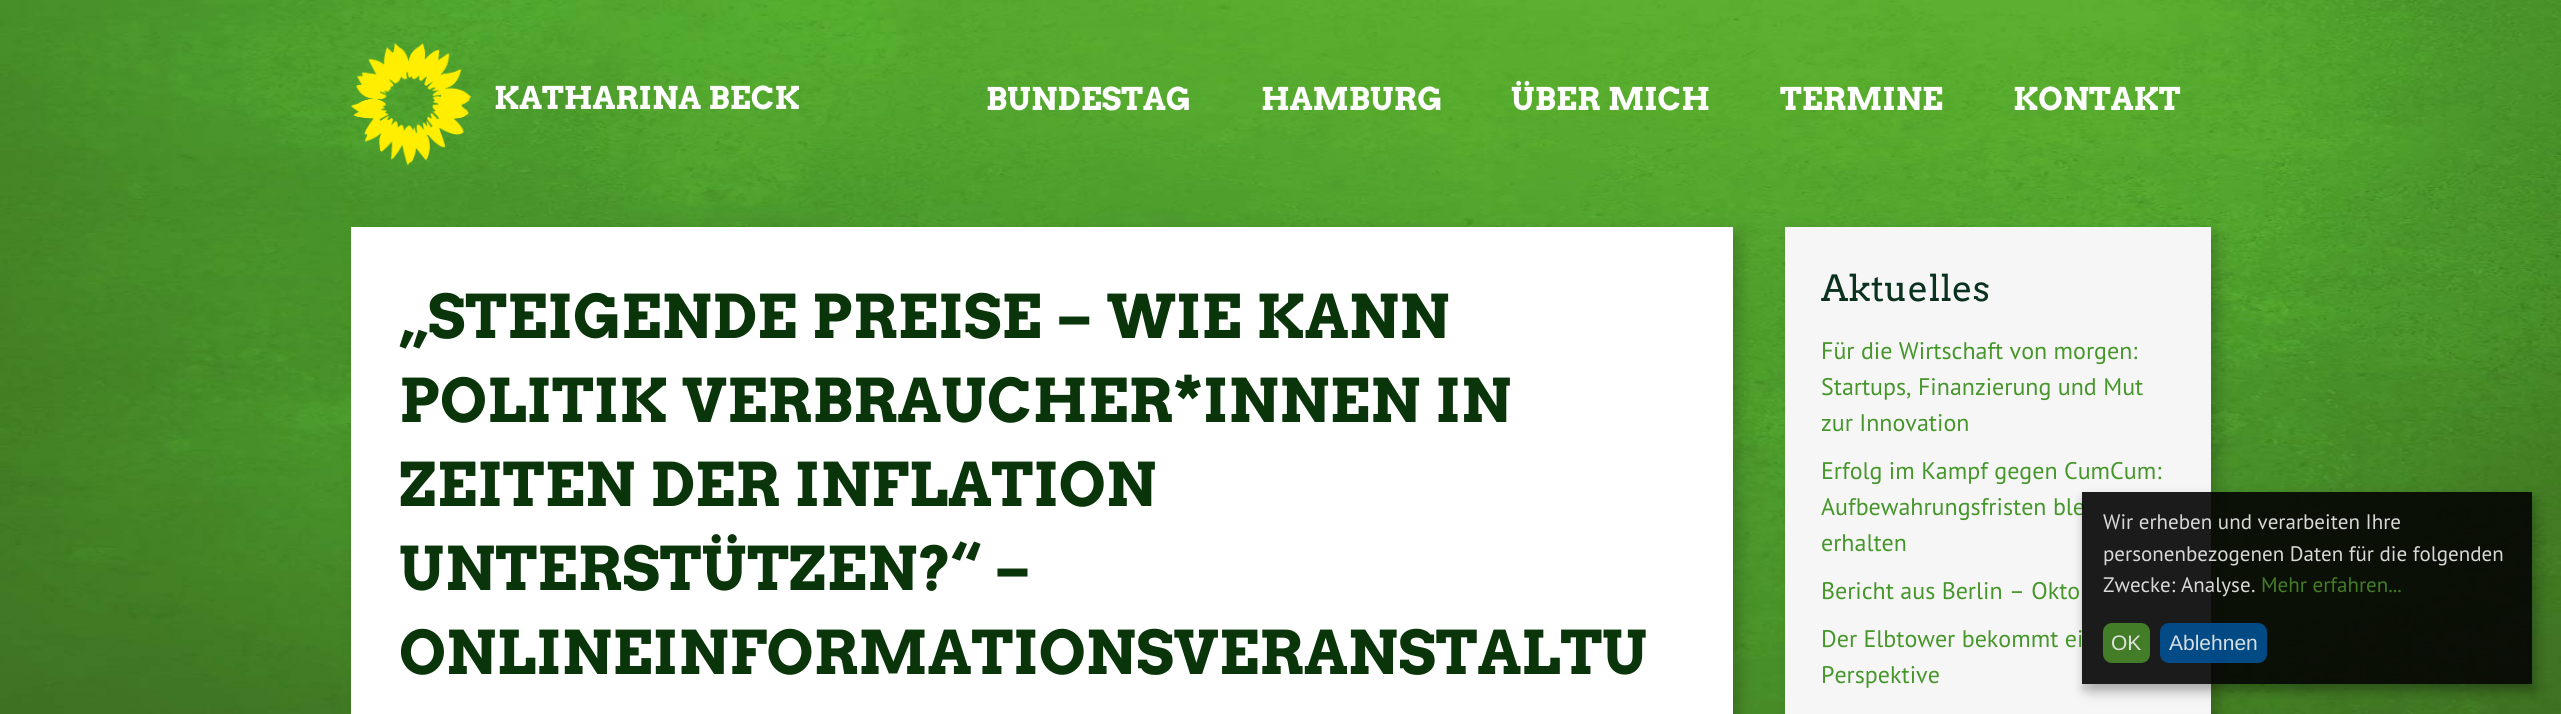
#include <cairo/cairo.h>
#include <math.h>
#include <stddef.h>

typedef struct { double x, y; const char *s; } line_t;
static cairo_t *cr;

static void rgb(unsigned color)
{
	cairo_set_source_rgb(cr, (color >> 16) / 255.0, (color >> 8 & 255) / 255.0, (color & 255) / 255.0);
}

static void rrect(double x, double y, double w, double h, double r)
{
	cairo_new_sub_path(cr);
	cairo_arc(cr, x + w - r, y + h - r, r, 0, M_PI / 2);
	cairo_arc(cr, x + r, y + h - r, r, M_PI / 2, M_PI);
	cairo_arc(cr, x + r, y + r, r, M_PI, 1.5 * M_PI);
	cairo_arc(cr, x + w - r, y + r, r, 1.5 * M_PI, 2 * M_PI);
	cairo_close_path(cr);
}

static void soft_shadow(double x, double y, double w, double h, double r, double blur, double alpha)
{
	cairo_push_group_with_content(cr, CAIRO_CONTENT_ALPHA);
	cairo_set_operator(cr, CAIRO_OPERATOR_SOURCE);
	for (int i = 15; i >= -15 && fmin(w, h) + blur * i / 3 > 0; i -= 2) {
		double e = blur * i / 6;
		cairo_set_source_rgba(cr, 0, 0, 0, alpha * erfc((i - 1) / 8.5) / 2);
		rrect(x - e, y - e, w + 2 * e, h + 2 * e, fmax(0, fmin(r + e + blur * .6, fmin(w, h) / 2 + e)));
		cairo_fill(cr);
	}
	cairo_pattern_t *soft = cairo_pop_group(cr);
	cairo_mask(cr, soft);
	cairo_pattern_destroy(soft);
}

static void image(const char *path, double x, double y, double w, double h)
{
	cairo_surface_t *image = cairo_image_surface_create_from_png(path);
	cairo_save(cr);
	cairo_set_source_surface(cr, image, x, y);
	cairo_rectangle(cr, x, y, w, h);
	cairo_fill(cr);
	cairo_restore(cr);
	cairo_surface_destroy(image);
}

int main(void) {
	cairo_surface_t *surface = cairo_image_surface_create(CAIRO_FORMAT_RGB24, 2561, 714);
	cr = cairo_create(surface);
	cairo_font_options_t *options = cairo_font_options_create();
	cairo_font_options_set_hint_metrics(options, CAIRO_HINT_METRICS_OFF);
	cairo_font_options_set_hint_style(options, CAIRO_HINT_STYLE_NONE);
	cairo_set_font_options(cr, options);
	cairo_set_miter_limit(cr, 4);
	rgb(0xffffff);
	cairo_paint(cr);
	image("img/1.png", 0, 0, 2561, 714);
	image("img/2.png", 351, 43, 120, 122);
	rgb(0x000000);
	soft_shadow(359, 234, 1381, 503, 0, 7.5, 0.2);
	rgb(0xffffff);
	cairo_rectangle(cr, 351, 227, 1382, 487);
	cairo_fill(cr);
	rgb(0x000000);
	soft_shadow(1793, 234, 426, 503, 0, 7.5, 0.2);
	rgb(0xf6f6f6);
	cairo_rectangle(cr, 1785, 227, 426, 487);
	cairo_fill(cr);
	cairo_save(cr);
	cairo_set_fill_rule(cr, CAIRO_FILL_RULE_EVEN_ODD);
	cairo_new_path(cr);
	cairo_move_to(cr, 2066, 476);
	cairo_line_to(cr, 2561, 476);
	cairo_line_to(cr, 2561, 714);
	cairo_line_to(cr, 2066, 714);
	cairo_close_path(cr);
	cairo_move_to(cr, 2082, 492);
	cairo_line_to(cr, 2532, 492);
	cairo_line_to(cr, 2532, 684);
	cairo_line_to(cr, 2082, 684);
	cairo_close_path(cr);
	cairo_clip(cr);
	rgb(0x000000);
	soft_shadow(2090, 500, 450, 192, 0, 7.5, 0.17);
	cairo_restore(cr);
	cairo_save(cr);
	cairo_set_fill_rule(cr, CAIRO_FILL_RULE_EVEN_ODD);
	cairo_new_path(cr);
	cairo_move_to(cr, 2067, 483);
	cairo_line_to(cr, 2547, 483);
	cairo_line_to(cr, 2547, 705);
	cairo_line_to(cr, 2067, 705);
	cairo_close_path(cr);
	cairo_move_to(cr, 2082, 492);
	cairo_line_to(cr, 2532, 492);
	cairo_line_to(cr, 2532, 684);
	cairo_line_to(cr, 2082, 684);
	cairo_close_path(cr);
	cairo_clip(cr);
	rgb(0x000000);
	soft_shadow(2082, 498, 450, 192, 0, 4.5, 0.18);
	cairo_restore(cr);
	cairo_select_font_face(cr, "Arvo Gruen", CAIRO_FONT_SLANT_NORMAL, CAIRO_FONT_WEIGHT_NORMAL);
	cairo_set_font_size(cr, 31.25);
	rgb(0xffffff);
	{
		static const line_t items[] = {
			{494, 109, "KATHARINA BECK"},
			{986, 110, "BUNDESTAG"},
			{1261, 110, "HAMBURG"},
			{1511, 110, "ÜBER MICH"},
			{1780, 110, "TERMINE"},
			{2013, 110, "KONTAKT"},
		};
		for (size_t i = 0; i < sizeof items / sizeof *items; i++) {
			cairo_move_to(cr, items[i].x, items[i].y);
			cairo_show_text(cr, items[i].s);
		}
	}
	cairo_set_font_size(cr, 60);
	rgb(0x0a350a);
	{
		static const line_t items[] = {
			{399, 338, "„STEIGENDE PREISE – WIE KANN"},
			{399, 422, "POLITIK VERBRAUCHER*INNEN IN"},
			{399, 506, "ZEITEN DER INFLATION"},
			{399, 590, "UNTERSTÜTZEN?“ –"},
			{399, 674, "ONLINEINFORMATIONSVERANSTALTU"},
		};
		for (size_t i = 0; i < sizeof items / sizeof *items; i++) {
			cairo_move_to(cr, items[i].x, items[i].y);
			cairo_show_text(cr, items[i].s);
		}
	}
	cairo_select_font_face(cr, "Arvo", CAIRO_FONT_SLANT_NORMAL, CAIRO_FONT_WEIGHT_NORMAL);
	cairo_set_font_size(cr, 36);
	rgb(0x0a321e);
	cairo_move_to(cr, 1821, 301);
	cairo_show_text(cr, "Aktuelles");
	cairo_select_font_face(cr, "PT Sans", CAIRO_FONT_SLANT_NORMAL, CAIRO_FONT_WEIGHT_NORMAL);
	cairo_set_font_size(cr, 24);
	rgb(0x46962b);
	{
		static const line_t items[] = {
			{1821, 359, "Für die Wirtschaft von morgen:"},
			{1821, 395, "Startups, Finanzierung und Mut"},
			{1821, 431, "zur Innovation"},
			{1821, 479, "Erfolg im Kampf gegen CumCum:"},
			{1821, 515, "Aufbewahrungsfristen ble"},
			{1821, 551, "erhalten"},
			{1821, 599, "Bericht aus Berlin – Okto"},
			{1821, 647, "Der Elbtower bekommt ei"},
			{1821, 683, "Perspektive"},
		};
		for (size_t i = 0; i < sizeof items / sizeof *items; i++) {
			cairo_move_to(cr, items[i].x, items[i].y);
			cairo_show_text(cr, items[i].s);
		}
	}
	cairo_set_source_rgba(cr, 0.02, 0.016, 0.016, 0.9);
	cairo_rectangle(cr, 2082, 492, 450, 192);
	cairo_fill(cr);
	cairo_set_font_size(cr, 21);
	rgb(0xd8d8d8);
	{
		static const line_t items[] = {
			{2103, 529, "Wir erheben und verarbeiten Ihre"},
			{2103, 561, "personenbezogenen Daten für die folgenden"},
			{2103, 592, "Zwecke:"},
			{2181, 592, "Analyse"},
			{2251, 592, "."},
		};
		for (size_t i = 0; i < sizeof items / sizeof *items; i++) {
			cairo_move_to(cr, items[i].x, items[i].y);
			cairo_show_text(cr, items[i].s);
		}
	}
	rgb(0x427c25);
	cairo_move_to(cr, 2261, 592);
	cairo_show_text(cr, "Mehr erfahren...");
	cairo_set_source_rgba(cr, 0.282, 0.533, 0.157, 0.9);
	rrect(2103, 623, 47, 40, 9);
	cairo_fill(cr);
	cairo_select_font_face(cr, "Liberation Sans", CAIRO_FONT_SLANT_NORMAL, CAIRO_FONT_WEIGHT_NORMAL);
	rgb(0xdde3da);
	cairo_move_to(cr, 2111, 650);
	cairo_show_text(cr, "OK");
	cairo_set_source_rgba(cr, 0, 0.314, 0.569, 0.9);
	rrect(2160, 623, 107, 40, 9);
	cairo_fill(cr);
	rgb(0xd6dee3);
	cairo_move_to(cr, 2169, 650);
	cairo_show_text(cr, "Ablehnen");
	cairo_surface_write_to_png(surface, "page.png");
	cairo_font_options_destroy(options);
	cairo_destroy(cr);
	cairo_surface_destroy(surface);
	return 0;
}
